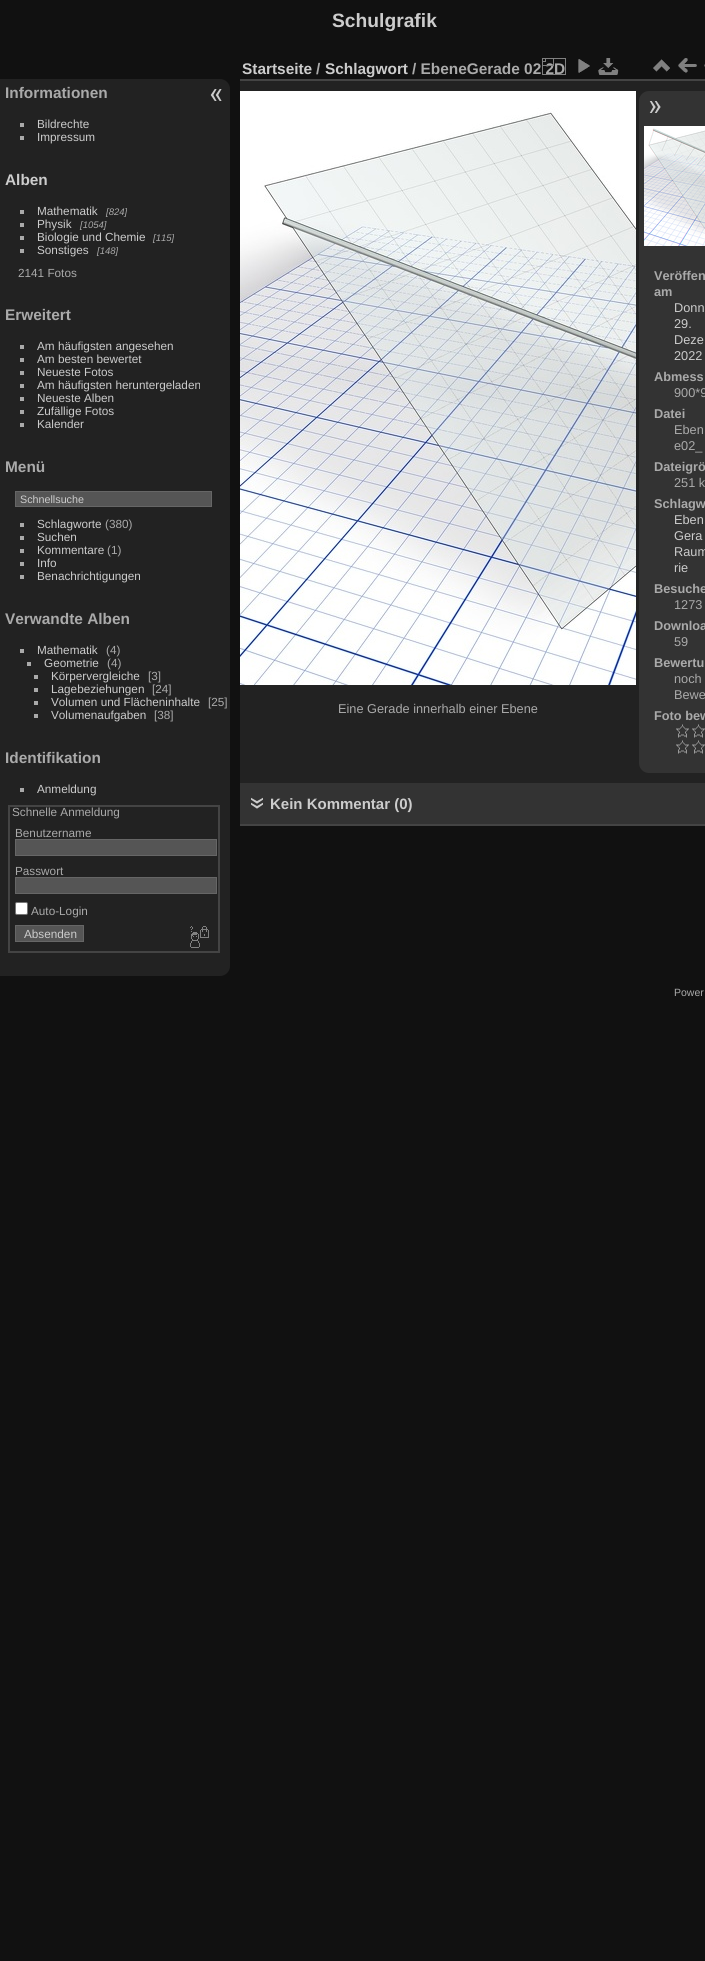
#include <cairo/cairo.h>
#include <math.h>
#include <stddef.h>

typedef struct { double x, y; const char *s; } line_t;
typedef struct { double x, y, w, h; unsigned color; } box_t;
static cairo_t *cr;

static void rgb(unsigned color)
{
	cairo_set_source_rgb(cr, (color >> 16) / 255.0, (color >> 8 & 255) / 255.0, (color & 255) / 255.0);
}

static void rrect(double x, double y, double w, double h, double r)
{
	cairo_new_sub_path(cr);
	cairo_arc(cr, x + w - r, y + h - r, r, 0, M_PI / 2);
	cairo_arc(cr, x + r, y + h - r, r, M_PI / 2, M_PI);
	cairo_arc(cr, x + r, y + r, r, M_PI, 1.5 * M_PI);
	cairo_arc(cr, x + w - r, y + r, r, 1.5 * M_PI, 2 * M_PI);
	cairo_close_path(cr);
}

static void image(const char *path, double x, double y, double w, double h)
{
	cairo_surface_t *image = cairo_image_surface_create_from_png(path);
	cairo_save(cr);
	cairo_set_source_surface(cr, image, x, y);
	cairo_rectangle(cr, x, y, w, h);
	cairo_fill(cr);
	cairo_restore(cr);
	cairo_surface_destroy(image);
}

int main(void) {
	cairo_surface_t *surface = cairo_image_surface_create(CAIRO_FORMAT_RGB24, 705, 1961);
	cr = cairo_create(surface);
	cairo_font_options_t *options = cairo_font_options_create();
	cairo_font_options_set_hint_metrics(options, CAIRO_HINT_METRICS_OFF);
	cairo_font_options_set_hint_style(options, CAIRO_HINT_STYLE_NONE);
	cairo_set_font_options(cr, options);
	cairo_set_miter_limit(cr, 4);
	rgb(0x111111);
	cairo_paint(cr);
	rgb(0x222222);
	cairo_new_path(cr);
	cairo_move_to(cr, 0, 79);
	cairo_line_to(cr, 220, 79);
	cairo_curve_to(cr, 225.5, 79, 230, 83.5, 230, 89);
	cairo_line_to(cr, 230, 966);
	cairo_curve_to(cr, 230, 971.5, 225.5, 976, 220, 976);
	cairo_line_to(cr, 0, 976);
	cairo_close_path(cr);
	cairo_fill(cr);
	{
		static const box_t items[] = {
			{20, 123, 4, 4, 0xaaaaaa},
			{20, 136, 4, 4, 0xaaaaaa},
			{20, 210, 4, 4, 0xaaaaaa},
			{20, 223, 4, 4, 0xaaaaaa},
			{20, 236, 4, 4, 0xaaaaaa},
			{20, 249, 4, 4, 0xaaaaaa},
			{20, 345, 4, 4, 0xaaaaaa},
			{20, 358, 4, 4, 0xaaaaaa},
			{20, 371, 4, 4, 0xaaaaaa},
			{20, 384, 4, 4, 0xaaaaaa},
			{20, 397, 4, 4, 0xaaaaaa},
			{20, 410, 4, 4, 0xaaaaaa},
			{20, 423, 4, 4, 0xaaaaaa},
		};
		for (size_t i = 0; i < sizeof items / sizeof *items; i++) {
			rgb(items[i].color);
			cairo_rectangle(cr, items[i].x, items[i].y, items[i].w, items[i].h);
			cairo_fill(cr);
		}
	}
	rgb(0x555555);
	cairo_rectangle(cr, 15.5, 491.5, 196, 15);
	cairo_fill_preserve(cr);
	rgb(0x666666);
	cairo_set_line_width(cr, 1);
	cairo_stroke(cr);
	{
		static const box_t items[] = {
			{20, 523, 4, 4, 0xaaaaaa},
			{20, 536, 4, 4, 0xaaaaaa},
			{20, 549, 4, 4, 0xaaaaaa},
			{20, 562, 4, 4, 0xaaaaaa},
			{20, 575, 4, 4, 0xaaaaaa},
			{20, 649, 4, 4, 0xaaaaaa},
			{27, 662, 4, 4, 0xaaaaaa},
			{34, 675, 4, 4, 0xaaaaaa},
			{34, 688, 4, 4, 0xaaaaaa},
			{34, 701, 4, 4, 0xaaaaaa},
			{34, 714, 4, 4, 0xaaaaaa},
			{20, 788, 4, 4, 0xaaaaaa},
		};
		for (size_t i = 0; i < sizeof items / sizeof *items; i++) {
			rgb(items[i].color);
			cairo_rectangle(cr, items[i].x, items[i].y, items[i].w, items[i].h);
			cairo_fill(cr);
		}
	}
	cairo_rectangle(cr, 9, 806, 210, 146);
	rgb(0x444444);
	cairo_set_line_width(cr, 2);
	cairo_stroke(cr);
	rgb(0x555555);
	cairo_rectangle(cr, 15.5, 839.5, 201, 16);
	cairo_fill_preserve(cr);
	rgb(0x666666);
	cairo_set_line_width(cr, 1);
	cairo_stroke(cr);
	rgb(0x555555);
	cairo_rectangle(cr, 15.5, 877.5, 201, 16);
	cairo_fill_preserve(cr);
	rgb(0x666666);
	cairo_stroke(cr);
	rgb(0xffffff);
	rrect(15.5, 902.5, 12, 12, 1.5);
	cairo_fill_preserve(cr);
	rgb(0x767676);
	cairo_stroke(cr);
	rgb(0x555555);
	cairo_rectangle(cr, 15.5, 925.5, 68, 16);
	cairo_fill_preserve(cr);
	rgb(0x666666);
	cairo_stroke(cr);
	image("img/1.png", 190, 926, 19, 22);
	{
		static const box_t items[] = {
			{240, 81, 465, 702, 0x222222},
			{240, 824, 465, 2, 0x444444},
			{240, 79, 465, 2, 0x444444},
		};
		for (size_t i = 0; i < sizeof items / sizeof *items; i++) {
			rgb(items[i].color);
			cairo_rectangle(cr, items[i].x, items[i].y, items[i].w, items[i].h);
			cairo_fill(cr);
		}
	}
	image("img/3.png", 578, 59, 12, 14);
	image("img/4.png", 598, 58, 21, 17);
	image("img/5.png", 653, 59, 17, 13);
	image("img/6.png", 678, 58, 19, 15);
	image("img/7.png", 704, 64, 1, 3);
	rgb(0x333333);
	cairo_new_path(cr);
	cairo_move_to(cr, 649, 91);
	cairo_line_to(cr, 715, 91);
	cairo_line_to(cr, 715, 773);
	cairo_line_to(cr, 649, 773);
	cairo_curve_to(cr, 643.5, 773, 639, 768.5, 639, 763);
	cairo_line_to(cr, 639, 101);
	cairo_curve_to(cr, 639, 95.5, 643.5, 91, 649, 91);
	cairo_close_path(cr);
	cairo_fill(cr);
	image("img/8.png", 649, 101, 12, 12);
	image("img/9.png", 240, 91, 396, 594);
	image("img/10.png", 644, 126, 61, 120);
	image("img/11.png", 676, 724, 13, 14);
	image("img/11.png", 692, 724, 13, 14);
	image("img/11.png", 676, 740, 13, 14);
	image("img/11.png", 692, 740, 13, 14);
	cairo_rectangle(cr, 240, 783, 465, 41);
	cairo_fill(cr);
	image("img/12.png", 251, 797, 12, 12);
	image("img/13.png", 210, 89, 12, 12);
	cairo_select_font_face(cr, "Liberation Sans", CAIRO_FONT_SLANT_NORMAL, CAIRO_FONT_WEIGHT_BOLD);
	cairo_set_font_size(cr, 19.25);
	rgb(0xcccccc);
	cairo_move_to(cr, 332, 27);
	cairo_show_text(cr, "Schulgrafik");
	cairo_set_font_size(cr, 15.4);
	rgb(0xaaaaaa);
	cairo_move_to(cr, 5, 98);
	cairo_show_text(cr, "Informationen");
	cairo_select_font_face(cr, "Liberation Sans", CAIRO_FONT_SLANT_NORMAL, CAIRO_FONT_WEIGHT_NORMAL);
	cairo_set_font_size(cr, 11.75);
	rgb(0xcccccc);
	cairo_move_to(cr, 37, 128);
	cairo_show_text(cr, "Bildrechte");
	cairo_move_to(cr, 37, 141);
	cairo_show_text(cr, "Impressum");
	cairo_select_font_face(cr, "Liberation Sans", CAIRO_FONT_SLANT_NORMAL, CAIRO_FONT_WEIGHT_BOLD);
	cairo_set_font_size(cr, 15.4);
	cairo_move_to(cr, 5, 185);
	cairo_show_text(cr, "Alben");
	cairo_select_font_face(cr, "Liberation Sans", CAIRO_FONT_SLANT_NORMAL, CAIRO_FONT_WEIGHT_NORMAL);
	cairo_set_font_size(cr, 11.75);
	cairo_move_to(cr, 37, 215);
	cairo_show_text(cr, "Mathematik");
	cairo_select_font_face(cr, "Liberation Sans", CAIRO_FONT_SLANT_ITALIC, CAIRO_FONT_WEIGHT_NORMAL);
	cairo_set_font_size(cr, 9.5);
	rgb(0xaaaaaa);
	cairo_move_to(cr, 106, 215);
	cairo_show_text(cr, "[824]");
	cairo_select_font_face(cr, "Liberation Sans", CAIRO_FONT_SLANT_NORMAL, CAIRO_FONT_WEIGHT_NORMAL);
	cairo_set_font_size(cr, 11.75);
	rgb(0xcccccc);
	cairo_move_to(cr, 37, 228);
	cairo_show_text(cr, "Physik");
	cairo_select_font_face(cr, "Liberation Sans", CAIRO_FONT_SLANT_ITALIC, CAIRO_FONT_WEIGHT_NORMAL);
	cairo_set_font_size(cr, 9.5);
	rgb(0xaaaaaa);
	cairo_move_to(cr, 80, 228);
	cairo_show_text(cr, "[1054]");
	cairo_select_font_face(cr, "Liberation Sans", CAIRO_FONT_SLANT_NORMAL, CAIRO_FONT_WEIGHT_NORMAL);
	cairo_set_font_size(cr, 11.75);
	rgb(0xcccccc);
	cairo_move_to(cr, 37, 241);
	cairo_show_text(cr, "Biologie und Chemie");
	cairo_select_font_face(cr, "Liberation Sans", CAIRO_FONT_SLANT_ITALIC, CAIRO_FONT_WEIGHT_NORMAL);
	cairo_set_font_size(cr, 9.5);
	rgb(0xaaaaaa);
	cairo_move_to(cr, 153, 241);
	cairo_show_text(cr, "[115]");
	cairo_select_font_face(cr, "Liberation Sans", CAIRO_FONT_SLANT_NORMAL, CAIRO_FONT_WEIGHT_NORMAL);
	cairo_set_font_size(cr, 11.75);
	rgb(0xcccccc);
	cairo_move_to(cr, 37, 254);
	cairo_show_text(cr, "Sonstiges");
	cairo_select_font_face(cr, "Liberation Sans", CAIRO_FONT_SLANT_ITALIC, CAIRO_FONT_WEIGHT_NORMAL);
	cairo_set_font_size(cr, 9.5);
	rgb(0xaaaaaa);
	cairo_move_to(cr, 97, 254);
	cairo_show_text(cr, "[148]");
	cairo_select_font_face(cr, "Liberation Sans", CAIRO_FONT_SLANT_NORMAL, CAIRO_FONT_WEIGHT_NORMAL);
	cairo_set_font_size(cr, 11.75);
	cairo_move_to(cr, 18, 277);
	cairo_show_text(cr, "2141 Fotos");
	cairo_select_font_face(cr, "Liberation Sans", CAIRO_FONT_SLANT_NORMAL, CAIRO_FONT_WEIGHT_BOLD);
	cairo_set_font_size(cr, 15.4);
	cairo_move_to(cr, 5, 320);
	cairo_show_text(cr, "Erweitert");
	cairo_select_font_face(cr, "Liberation Sans", CAIRO_FONT_SLANT_NORMAL, CAIRO_FONT_WEIGHT_NORMAL);
	cairo_set_font_size(cr, 11.75);
	rgb(0xcccccc);
	{
		static const line_t items[] = {
			{37, 350, "Am häufigsten angesehen"},
			{37, 363, "Am besten bewertet"},
			{37, 376, "Neueste Fotos"},
			{37, 389, "Am häufigsten heruntergeladen"},
			{37, 402, "Neueste Alben"},
			{37, 415, "Zufällige Fotos"},
			{37, 428, "Kalender"},
		};
		for (size_t i = 0; i < sizeof items / sizeof *items; i++) {
			cairo_move_to(cr, items[i].x, items[i].y);
			cairo_show_text(cr, items[i].s);
		}
	}
	cairo_select_font_face(cr, "Liberation Sans", CAIRO_FONT_SLANT_NORMAL, CAIRO_FONT_WEIGHT_BOLD);
	cairo_set_font_size(cr, 15.4);
	rgb(0xaaaaaa);
	cairo_move_to(cr, 5, 472);
	cairo_show_text(cr, "Menü");
	cairo_select_font_face(cr, "Liberation Sans", CAIRO_FONT_SLANT_NORMAL, CAIRO_FONT_WEIGHT_NORMAL);
	cairo_set_font_size(cr, 10.75);
	rgb(0xcccccc);
	cairo_move_to(cr, 20, 503);
	cairo_show_text(cr, "Schnellsuche");
	cairo_set_font_size(cr, 11.75);
	cairo_move_to(cr, 37, 528);
	cairo_show_text(cr, "Schlagworte");
	rgb(0xaaaaaa);
	cairo_move_to(cr, 105, 528);
	cairo_show_text(cr, "(380)");
	rgb(0xcccccc);
	cairo_move_to(cr, 37, 541);
	cairo_show_text(cr, "Suchen");
	cairo_move_to(cr, 37, 554);
	cairo_show_text(cr, "Kommentare");
	rgb(0xaaaaaa);
	cairo_move_to(cr, 107, 554);
	cairo_show_text(cr, "(1)");
	rgb(0xcccccc);
	cairo_move_to(cr, 37, 567);
	cairo_show_text(cr, "Info");
	cairo_move_to(cr, 37, 580);
	cairo_show_text(cr, "Benachrichtigungen");
	cairo_select_font_face(cr, "Liberation Sans", CAIRO_FONT_SLANT_NORMAL, CAIRO_FONT_WEIGHT_BOLD);
	cairo_set_font_size(cr, 15.4);
	rgb(0xaaaaaa);
	cairo_move_to(cr, 5, 624);
	cairo_show_text(cr, "Verwandte Alben");
	cairo_select_font_face(cr, "Liberation Sans", CAIRO_FONT_SLANT_NORMAL, CAIRO_FONT_WEIGHT_NORMAL);
	cairo_set_font_size(cr, 11.75);
	rgb(0xcccccc);
	cairo_move_to(cr, 37, 654);
	cairo_show_text(cr, "Mathematik");
	rgb(0xaaaaaa);
	cairo_move_to(cr, 106, 654);
	cairo_show_text(cr, "(4)");
	rgb(0xcccccc);
	cairo_move_to(cr, 44, 667);
	cairo_show_text(cr, "Geometrie");
	rgb(0xaaaaaa);
	cairo_move_to(cr, 107, 667);
	cairo_show_text(cr, "(4)");
	rgb(0xcccccc);
	cairo_move_to(cr, 51, 680);
	cairo_show_text(cr, "Körpervergleiche");
	rgb(0xaaaaaa);
	cairo_move_to(cr, 148, 680);
	cairo_show_text(cr, "[3]");
	rgb(0xcccccc);
	cairo_move_to(cr, 51, 693);
	cairo_show_text(cr, "Lagebeziehungen");
	rgb(0xaaaaaa);
	cairo_move_to(cr, 152, 693);
	cairo_show_text(cr, "[24]");
	rgb(0xcccccc);
	cairo_move_to(cr, 51, 706);
	cairo_show_text(cr, "Volumen und Flächeninhalte");
	rgb(0xaaaaaa);
	cairo_move_to(cr, 208, 706);
	cairo_show_text(cr, "[25]");
	rgb(0xcccccc);
	cairo_move_to(cr, 51, 719);
	cairo_show_text(cr, "Volumenaufgaben");
	rgb(0xaaaaaa);
	cairo_move_to(cr, 154, 719);
	cairo_show_text(cr, "[38]");
	cairo_select_font_face(cr, "Liberation Sans", CAIRO_FONT_SLANT_NORMAL, CAIRO_FONT_WEIGHT_BOLD);
	cairo_set_font_size(cr, 15.4);
	cairo_move_to(cr, 5, 763);
	cairo_show_text(cr, "Identifikation");
	cairo_select_font_face(cr, "Liberation Sans", CAIRO_FONT_SLANT_NORMAL, CAIRO_FONT_WEIGHT_NORMAL);
	cairo_set_font_size(cr, 11.75);
	rgb(0xcccccc);
	cairo_move_to(cr, 37, 793);
	cairo_show_text(cr, "Anmeldung");
	rgb(0xaaaaaa);
	{
		static const line_t items[] = {
			{12, 816, "Schnelle Anmeldung"},
			{15, 837, "Benutzername"},
			{15, 875, "Passwort"},
			{31, 915, "Auto-Login"},
		};
		for (size_t i = 0; i < sizeof items / sizeof *items; i++) {
			cairo_move_to(cr, items[i].x, items[i].y);
			cairo_show_text(cr, items[i].s);
		}
	}
	rgb(0xcccccc);
	cairo_move_to(cr, 24, 938);
	cairo_show_text(cr, "Absenden");
	cairo_select_font_face(cr, "Liberation Sans", CAIRO_FONT_SLANT_NORMAL, CAIRO_FONT_WEIGHT_BOLD);
	cairo_set_font_size(cr, 15.4);
	cairo_move_to(cr, 242, 74);
	cairo_show_text(cr, "Startseite");
	rgb(0xaaaaaa);
	cairo_move_to(cr, 316, 74);
	cairo_show_text(cr, "/");
	rgb(0xcccccc);
	cairo_move_to(cr, 325, 74);
	cairo_show_text(cr, "Schlagwort");
	rgb(0xaaaaaa);
	cairo_move_to(cr, 412, 74);
	cairo_show_text(cr, "/ EbeneGerade 02 2D");
	image("img/2.png", 542, 58, 24, 17);
	cairo_select_font_face(cr, "Liberation Sans", CAIRO_FONT_SLANT_NORMAL, CAIRO_FONT_WEIGHT_NORMAL);
	cairo_set_font_size(cr, 12.75);
	cairo_move_to(cr, 338, 713);
	cairo_show_text(cr, "Eine Gerade innerhalb einer Ebene");
	cairo_select_font_face(cr, "Liberation Sans", CAIRO_FONT_SLANT_NORMAL, CAIRO_FONT_WEIGHT_BOLD);
	cairo_move_to(cr, 654, 280);
	cairo_show_text(cr, "Veröffen");
	cairo_move_to(cr, 654, 296);
	cairo_show_text(cr, "am");
	cairo_select_font_face(cr, "Liberation Sans", CAIRO_FONT_SLANT_NORMAL, CAIRO_FONT_WEIGHT_NORMAL);
	rgb(0xcccccc);
	{
		static const line_t items[] = {
			{674, 312, "Donn"},
			{674, 328, "29."},
			{674, 344, "Deze"},
			{674, 360, "2022"},
		};
		for (size_t i = 0; i < sizeof items / sizeof *items; i++) {
			cairo_move_to(cr, items[i].x, items[i].y);
			cairo_show_text(cr, items[i].s);
		}
	}
	cairo_select_font_face(cr, "Liberation Sans", CAIRO_FONT_SLANT_NORMAL, CAIRO_FONT_WEIGHT_BOLD);
	rgb(0xaaaaaa);
	cairo_move_to(cr, 654, 381);
	cairo_show_text(cr, "Abmess");
	cairo_select_font_face(cr, "Liberation Sans", CAIRO_FONT_SLANT_NORMAL, CAIRO_FONT_WEIGHT_NORMAL);
	cairo_move_to(cr, 674, 397);
	cairo_show_text(cr, "900*9");
	cairo_select_font_face(cr, "Liberation Sans", CAIRO_FONT_SLANT_NORMAL, CAIRO_FONT_WEIGHT_BOLD);
	cairo_move_to(cr, 654, 418);
	cairo_show_text(cr, "Datei");
	cairo_select_font_face(cr, "Liberation Sans", CAIRO_FONT_SLANT_NORMAL, CAIRO_FONT_WEIGHT_NORMAL);
	cairo_move_to(cr, 674, 434);
	cairo_show_text(cr, "Eben");
	cairo_move_to(cr, 674, 450);
	cairo_show_text(cr, "e02_");
	cairo_select_font_face(cr, "Liberation Sans", CAIRO_FONT_SLANT_NORMAL, CAIRO_FONT_WEIGHT_BOLD);
	cairo_move_to(cr, 654, 471);
	cairo_show_text(cr, "Dateigrö");
	cairo_select_font_face(cr, "Liberation Sans", CAIRO_FONT_SLANT_NORMAL, CAIRO_FONT_WEIGHT_NORMAL);
	cairo_move_to(cr, 674, 487);
	cairo_show_text(cr, "251 k");
	cairo_select_font_face(cr, "Liberation Sans", CAIRO_FONT_SLANT_NORMAL, CAIRO_FONT_WEIGHT_BOLD);
	cairo_move_to(cr, 654, 508);
	cairo_show_text(cr, "Schlagw");
	cairo_select_font_face(cr, "Liberation Sans", CAIRO_FONT_SLANT_NORMAL, CAIRO_FONT_WEIGHT_NORMAL);
	rgb(0xcccccc);
	{
		static const line_t items[] = {
			{674, 524, "Eben"},
			{674, 540, "Gera"},
			{674, 556, "Raum"},
			{674, 572, "rie"},
		};
		for (size_t i = 0; i < sizeof items / sizeof *items; i++) {
			cairo_move_to(cr, items[i].x, items[i].y);
			cairo_show_text(cr, items[i].s);
		}
	}
	cairo_select_font_face(cr, "Liberation Sans", CAIRO_FONT_SLANT_NORMAL, CAIRO_FONT_WEIGHT_BOLD);
	rgb(0xaaaaaa);
	cairo_move_to(cr, 654, 593);
	cairo_show_text(cr, "Besuche");
	cairo_select_font_face(cr, "Liberation Sans", CAIRO_FONT_SLANT_NORMAL, CAIRO_FONT_WEIGHT_NORMAL);
	cairo_move_to(cr, 674, 609);
	cairo_show_text(cr, "1273");
	cairo_select_font_face(cr, "Liberation Sans", CAIRO_FONT_SLANT_NORMAL, CAIRO_FONT_WEIGHT_BOLD);
	cairo_move_to(cr, 654, 630);
	cairo_show_text(cr, "Downloa");
	cairo_select_font_face(cr, "Liberation Sans", CAIRO_FONT_SLANT_NORMAL, CAIRO_FONT_WEIGHT_NORMAL);
	cairo_move_to(cr, 674, 646);
	cairo_show_text(cr, "59");
	cairo_select_font_face(cr, "Liberation Sans", CAIRO_FONT_SLANT_NORMAL, CAIRO_FONT_WEIGHT_BOLD);
	cairo_move_to(cr, 654, 667);
	cairo_show_text(cr, "Bewertu");
	cairo_select_font_face(cr, "Liberation Sans", CAIRO_FONT_SLANT_NORMAL, CAIRO_FONT_WEIGHT_NORMAL);
	cairo_move_to(cr, 674, 683);
	cairo_show_text(cr, "noch");
	cairo_move_to(cr, 674, 699);
	cairo_show_text(cr, "Bewe");
	cairo_select_font_face(cr, "Liberation Sans", CAIRO_FONT_SLANT_NORMAL, CAIRO_FONT_WEIGHT_BOLD);
	cairo_move_to(cr, 654, 720);
	cairo_show_text(cr, "Foto bew");
	cairo_set_font_size(cr, 15);
	rgb(0xcccccc);
	cairo_move_to(cr, 270, 809);
	cairo_show_text(cr, "Kein Kommentar (0)");
	cairo_select_font_face(cr, "Liberation Sans", CAIRO_FONT_SLANT_NORMAL, CAIRO_FONT_WEIGHT_NORMAL);
	cairo_set_font_size(cr, 10.5);
	rgb(0xaaaaaa);
	cairo_move_to(cr, 674, 996);
	cairo_show_text(cr, "Power");
	cairo_surface_write_to_png(surface, "page.png");
	cairo_font_options_destroy(options);
	cairo_destroy(cr);
	cairo_surface_destroy(surface);
	return 0;
}
